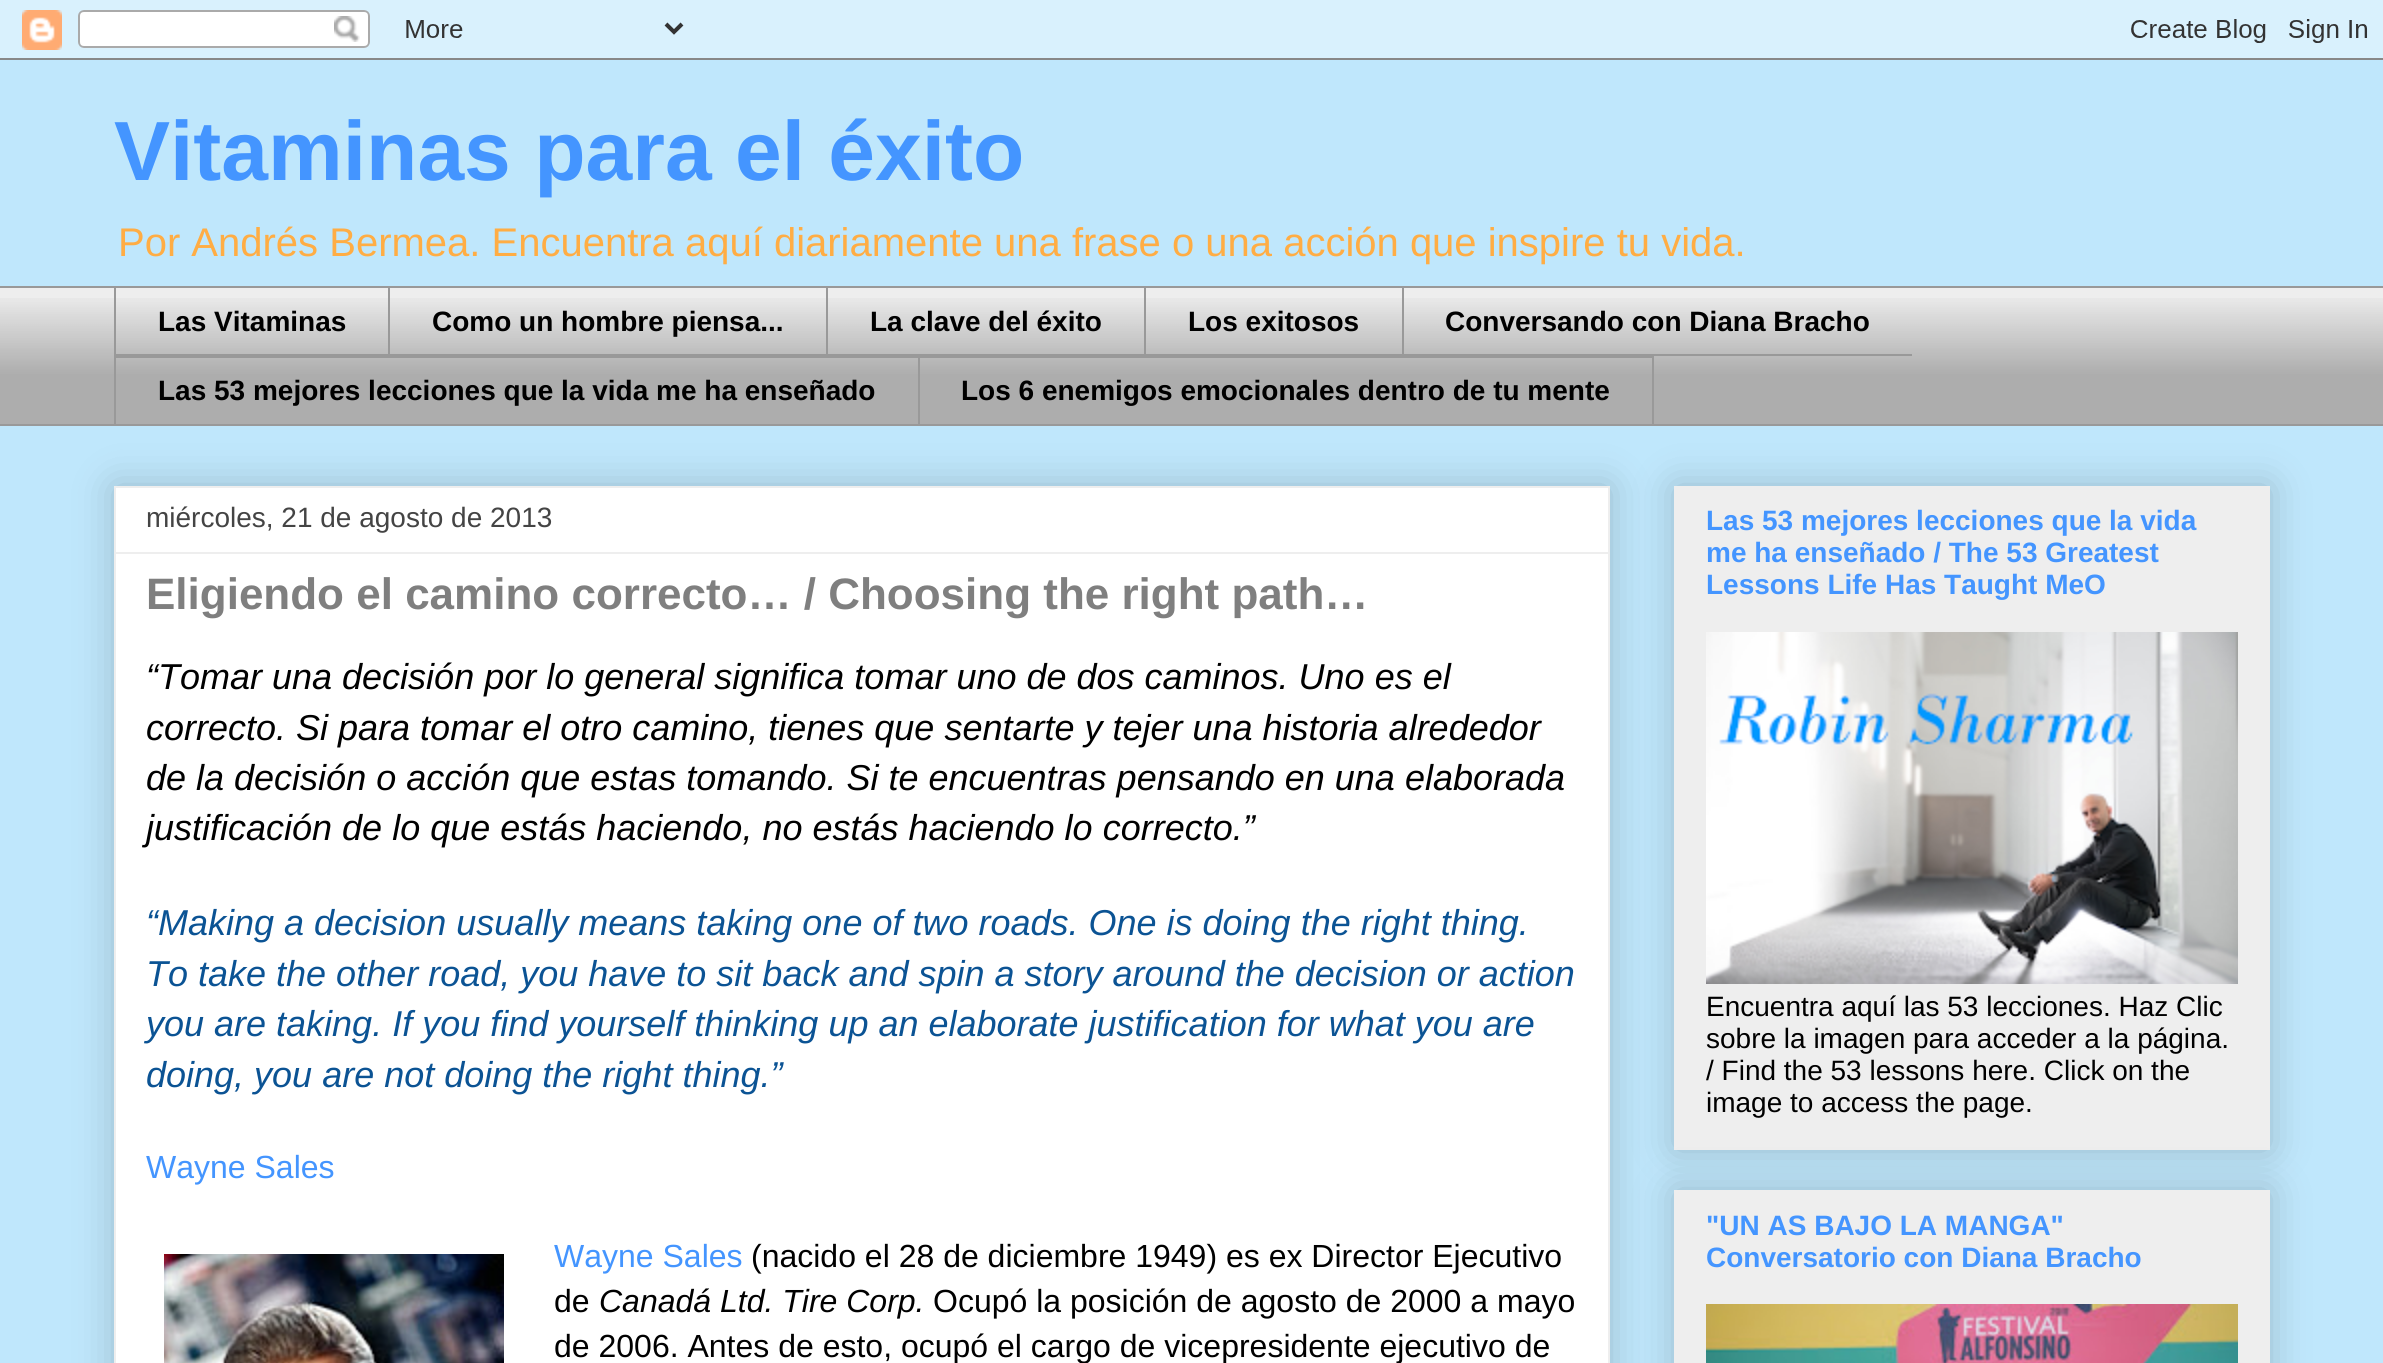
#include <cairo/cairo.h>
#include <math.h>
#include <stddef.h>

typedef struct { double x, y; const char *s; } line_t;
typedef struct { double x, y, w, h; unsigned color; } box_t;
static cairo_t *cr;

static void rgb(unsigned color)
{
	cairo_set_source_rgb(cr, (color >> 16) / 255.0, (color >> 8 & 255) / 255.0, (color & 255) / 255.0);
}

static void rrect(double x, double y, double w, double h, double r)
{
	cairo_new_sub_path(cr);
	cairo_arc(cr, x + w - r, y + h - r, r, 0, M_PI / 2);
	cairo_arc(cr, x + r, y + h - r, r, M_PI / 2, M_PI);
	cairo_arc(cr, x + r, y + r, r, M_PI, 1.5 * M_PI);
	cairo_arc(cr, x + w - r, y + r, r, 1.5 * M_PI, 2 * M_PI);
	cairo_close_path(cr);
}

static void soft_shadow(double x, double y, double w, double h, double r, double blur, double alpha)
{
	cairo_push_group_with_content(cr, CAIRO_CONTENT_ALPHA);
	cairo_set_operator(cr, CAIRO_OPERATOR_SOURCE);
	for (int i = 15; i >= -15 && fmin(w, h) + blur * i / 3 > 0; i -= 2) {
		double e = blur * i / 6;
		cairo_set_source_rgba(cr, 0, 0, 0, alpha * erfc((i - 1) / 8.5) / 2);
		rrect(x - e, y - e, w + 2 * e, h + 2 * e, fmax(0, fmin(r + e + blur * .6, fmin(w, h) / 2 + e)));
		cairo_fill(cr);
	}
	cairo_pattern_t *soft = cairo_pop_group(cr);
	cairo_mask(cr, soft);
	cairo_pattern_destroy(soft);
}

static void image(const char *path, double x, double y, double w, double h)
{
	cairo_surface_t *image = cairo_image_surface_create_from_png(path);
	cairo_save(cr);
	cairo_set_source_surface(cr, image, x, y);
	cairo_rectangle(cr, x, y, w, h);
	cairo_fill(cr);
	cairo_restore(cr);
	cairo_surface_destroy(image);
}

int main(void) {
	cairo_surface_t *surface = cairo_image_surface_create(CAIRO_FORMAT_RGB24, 2383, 1363);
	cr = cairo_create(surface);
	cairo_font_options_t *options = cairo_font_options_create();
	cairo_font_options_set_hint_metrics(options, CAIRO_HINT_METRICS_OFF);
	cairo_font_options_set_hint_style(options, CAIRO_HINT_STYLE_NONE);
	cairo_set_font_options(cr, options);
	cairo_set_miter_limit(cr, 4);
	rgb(0xbfe7fc);
	cairo_paint(cr);
	image("img/1.png", 0, 0, 2383, 60);
	rgb(0xeeeeee);
	cairo_rectangle(cr, 0, 288, 2383, 136);
	cairo_fill(cr);
	image("img/2.png", 0, 298, 2383, 126);
	{
		static const box_t items[] = {
			{0, 286, 2383, 2, 0x999999},
			{114, 354, 1798, 2, 0x999999},
			{114, 286, 2, 70, 0x999999},
			{388, 286, 2, 70, 0x999999},
			{826, 286, 2, 70, 0x999999},
			{1144, 286, 2, 70, 0x999999},
			{1402, 286, 2, 70, 0x999999},
			{114, 356, 804, 2, 0x999999},
			{114, 356, 2, 70, 0x999999},
		};
		for (size_t i = 0; i < sizeof items / sizeof *items; i++) {
			rgb(items[i].color);
			cairo_rectangle(cr, items[i].x, items[i].y, items[i].w, items[i].h);
			cairo_fill(cr);
		}
	}
	cairo_rectangle(cr, 919, 357, 734, 68);
	cairo_stroke(cr);
	cairo_rectangle(cr, 0, 424, 2383, 2);
	cairo_fill(cr);
	rgb(0x000000);
	soft_shadow(114, 486, 1496, 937, 0, 20, 0.2);
	rgb(0xffffff);
	cairo_rectangle(cr, 115, 487, 1494, 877);
	cairo_fill_preserve(cr);
	rgb(0xeeeeee);
	cairo_stroke(cr);
	cairo_rectangle(cr, 116, 552, 1492, 2);
	cairo_fill(cr);
	image("img/3.png", 164, 1254, 340, 109);
	rgb(0x000000);
	soft_shadow(1674, 486, 596, 664, 0, 20, 0.2);
	rgb(0xeeeeee);
	cairo_rectangle(cr, 1674, 486, 596, 664);
	cairo_fill(cr);
	image("img/4.png", 1706, 632, 532, 352);
	rgb(0x000000);
	soft_shadow(1674, 1190, 596, 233, 0, 20, 0.2);
	rgb(0xeeeeee);
	cairo_rectangle(cr, 1674, 1190, 596, 173);
	cairo_fill(cr);
	image("img/5.png", 1706, 1304, 532, 59);
	cairo_select_font_face(cr, "Liberation Sans", CAIRO_FONT_SLANT_NORMAL, CAIRO_FONT_WEIGHT_BOLD);
	cairo_set_font_size(cr, 84);
	rgb(0x4495ff);
	cairo_move_to(cr, 114, 180);
	cairo_show_text(cr, "Vitaminas para el éxito");
	cairo_select_font_face(cr, "Liberation Sans", CAIRO_FONT_SLANT_NORMAL, CAIRO_FONT_WEIGHT_NORMAL);
	cairo_set_font_size(cr, 40);
	rgb(0xffad44);
	cairo_move_to(cr, 118, 256);
	cairo_show_text(cr, "Por Andrés Bermea. Encuentra aquí diariamente una frase o una acción que inspire tu vida.");
	cairo_select_font_face(cr, "Liberation Sans", CAIRO_FONT_SLANT_NORMAL, CAIRO_FONT_WEIGHT_BOLD);
	cairo_set_font_size(cr, 28);
	rgb(0x000000);
	{
		static const line_t items[] = {
			{158, 331, "Las Vitaminas"},
			{432, 331, "Como un hombre piensa..."},
			{870, 331, "La clave del éxito"},
			{1188, 331, "Los exitosos"},
			{1445, 331, "Conversando con Diana Bracho"},
			{158, 400, "Las 53 mejores lecciones que la vida me ha enseñado"},
			{961, 400, "Los 6 enemigos emocionales dentro de tu mente"},
		};
		for (size_t i = 0; i < sizeof items / sizeof *items; i++) {
			cairo_move_to(cr, items[i].x, items[i].y);
			cairo_show_text(cr, items[i].s);
		}
	}
	cairo_select_font_face(cr, "Liberation Sans", CAIRO_FONT_SLANT_NORMAL, CAIRO_FONT_WEIGHT_NORMAL);
	rgb(0x444444);
	cairo_move_to(cr, 146, 527);
	cairo_show_text(cr, "miércoles, 21 de agosto de 2013");
	cairo_select_font_face(cr, "Liberation Sans", CAIRO_FONT_SLANT_NORMAL, CAIRO_FONT_WEIGHT_BOLD);
	cairo_set_font_size(cr, 44);
	rgb(0x7f7f7f);
	cairo_move_to(cr, 146, 609);
	cairo_show_text(cr, "Eligiendo el camino correcto… / Choosing the right path…");
	cairo_select_font_face(cr, "Liberation Sans", CAIRO_FONT_SLANT_ITALIC, CAIRO_FONT_WEIGHT_NORMAL);
	cairo_set_font_size(cr, 36);
	rgb(0x000000);
	{
		static const line_t items[] = {
			{146, 689, "“Tomar una decisión por lo general significa tomar uno de dos caminos. Uno es el"},
			{146, 740, "correcto. Si para tomar el otro camino, tienes que sentarte y tejer una historia alrededor"},
			{146, 790, "de la decisión o acción que estas tomando. Si te encuentras pensando en una elaborada"},
			{146, 840, "justificación de lo que estás haciendo, no estás haciendo lo correcto.”"},
		};
		for (size_t i = 0; i < sizeof items / sizeof *items; i++) {
			cairo_move_to(cr, items[i].x, items[i].y);
			cairo_show_text(cr, items[i].s);
		}
	}
	rgb(0x0b5394);
	{
		static const line_t items[] = {
			{146, 935, "“Making a decision usually means taking one of two roads. One is doing the right thing."},
			{146, 986, "To take the other road, you have to sit back and spin a story around the decision or action"},
			{146, 1036, "you are taking. If you find yourself thinking up an elaborate justification for what you are"},
			{146, 1087, "doing, you are not doing the right thing.”"},
		};
		for (size_t i = 0; i < sizeof items / sizeof *items; i++) {
			cairo_move_to(cr, items[i].x, items[i].y);
			cairo_show_text(cr, items[i].s);
		}
	}
	cairo_select_font_face(cr, "Liberation Sans", CAIRO_FONT_SLANT_NORMAL, CAIRO_FONT_WEIGHT_NORMAL);
	cairo_set_font_size(cr, 32);
	rgb(0x4495ff);
	cairo_move_to(cr, 146, 1178);
	cairo_show_text(cr, "Wayne Sales");
	cairo_move_to(cr, 554, 1267);
	cairo_show_text(cr, "Wayne Sales");
	rgb(0x000000);
	cairo_move_to(cr, 751, 1267);
	cairo_show_text(cr, "(nacido el 28 de diciembre 1949) es ex Director Ejecutivo");
	cairo_move_to(cr, 554, 1312);
	cairo_show_text(cr, "de");
	cairo_select_font_face(cr, "Liberation Sans", CAIRO_FONT_SLANT_ITALIC, CAIRO_FONT_WEIGHT_NORMAL);
	cairo_move_to(cr, 599, 1312);
	cairo_show_text(cr, "Canadá Ltd. Tire Corp.");
	cairo_select_font_face(cr, "Liberation Sans", CAIRO_FONT_SLANT_NORMAL, CAIRO_FONT_WEIGHT_NORMAL);
	cairo_move_to(cr, 933, 1312);
	cairo_show_text(cr, "Ocupó la posición de agosto de 2000 a mayo");
	cairo_move_to(cr, 554, 1357);
	cairo_show_text(cr, "de 2006. Antes de esto, ocupó el cargo de vicepresidente ejecutivo de");
	cairo_select_font_face(cr, "Liberation Sans", CAIRO_FONT_SLANT_NORMAL, CAIRO_FONT_WEIGHT_BOLD);
	cairo_set_font_size(cr, 28);
	rgb(0x4495ff);
	{
		static const line_t items[] = {
			{1706, 530, "Las 53 mejores lecciones que la vida"},
			{1706, 562, "me ha enseñado / The 53 Greatest"},
			{1706, 594, "Lessons Life Has Taught MeO"},
		};
		for (size_t i = 0; i < sizeof items / sizeof *items; i++) {
			cairo_move_to(cr, items[i].x, items[i].y);
			cairo_show_text(cr, items[i].s);
		}
	}
	cairo_select_font_face(cr, "Liberation Sans", CAIRO_FONT_SLANT_NORMAL, CAIRO_FONT_WEIGHT_NORMAL);
	rgb(0x000000);
	{
		static const line_t items[] = {
			{1706, 1016, "Encuentra aquí las 53 lecciones. Haz Clic"},
			{1706, 1048, "sobre la imagen para acceder a la página."},
			{1706, 1080, "/ Find the 53 lessons here. Click on the"},
			{1706, 1112, "image to access the page."},
		};
		for (size_t i = 0; i < sizeof items / sizeof *items; i++) {
			cairo_move_to(cr, items[i].x, items[i].y);
			cairo_show_text(cr, items[i].s);
		}
	}
	cairo_select_font_face(cr, "Liberation Sans", CAIRO_FONT_SLANT_NORMAL, CAIRO_FONT_WEIGHT_BOLD);
	rgb(0x4495ff);
	cairo_move_to(cr, 1706, 1235);
	cairo_show_text(cr, "\"UN AS BAJO LA MANGA\"");
	cairo_move_to(cr, 1706, 1267);
	cairo_show_text(cr, "Conversatorio con Diana Bracho");
	cairo_surface_write_to_png(surface, "page.png");
	cairo_font_options_destroy(options);
	cairo_destroy(cr);
	cairo_surface_destroy(surface);
	return 0;
}
